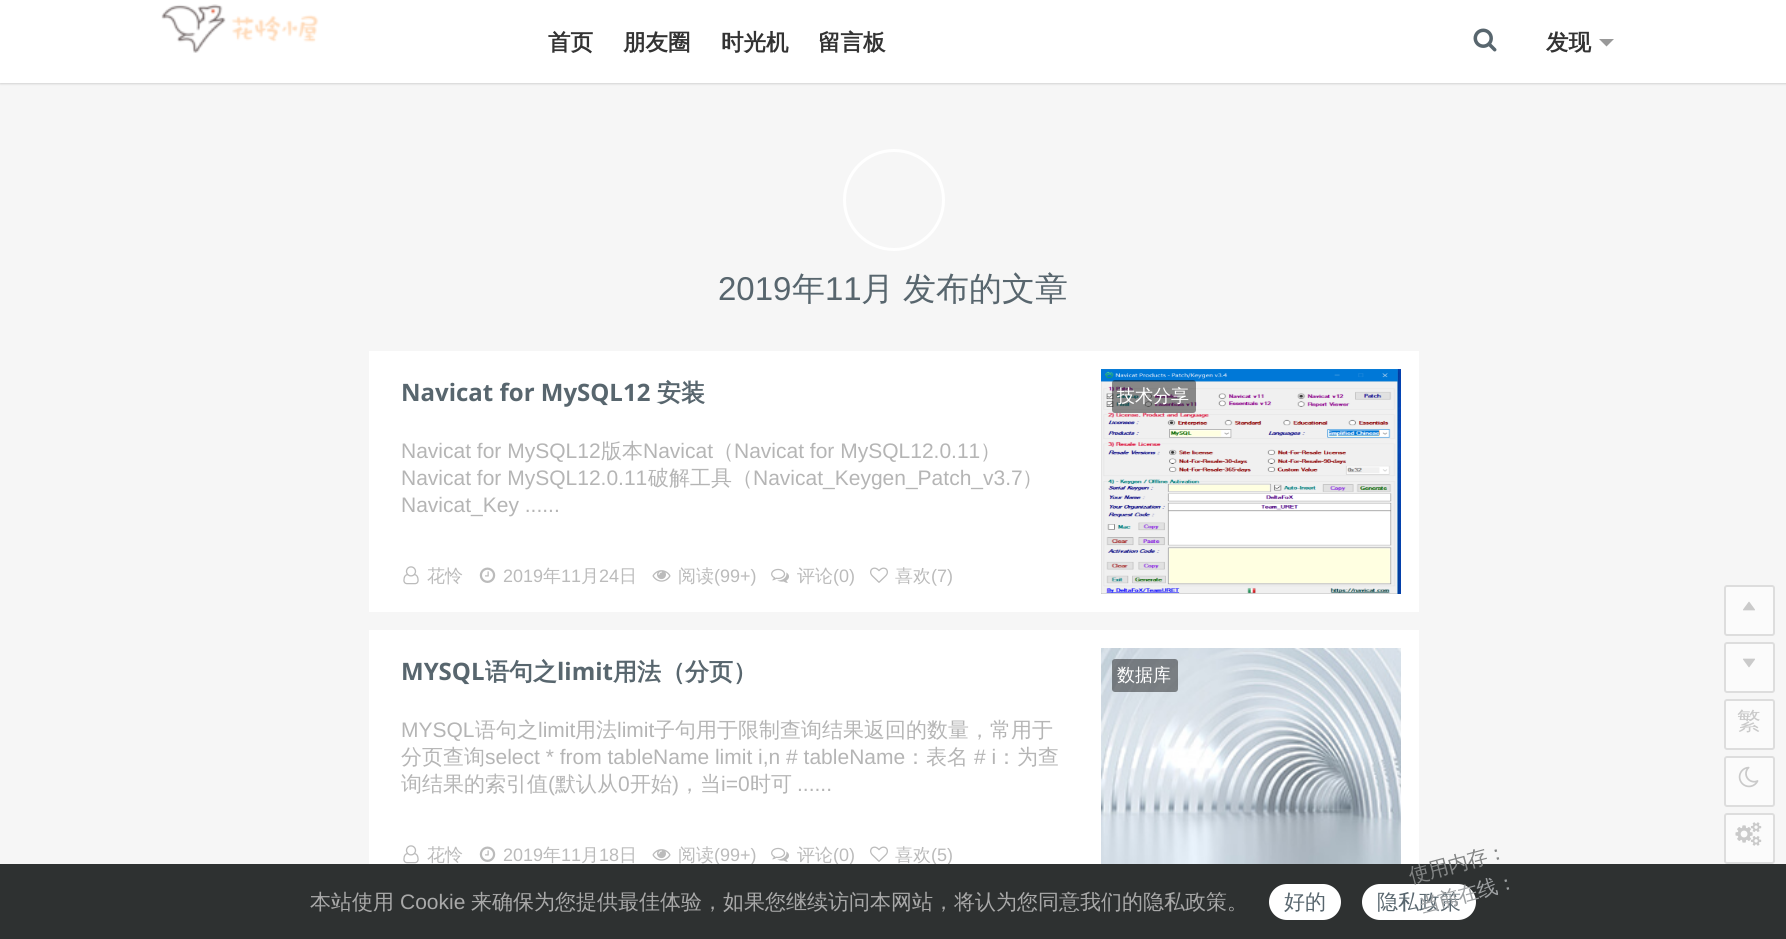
#include <cairo/cairo.h>
#include <math.h>
#include <stddef.h>

typedef struct { double x, y; const char *s; } line_t;
static cairo_t *cr;

static void rgb(unsigned color)
{
	cairo_set_source_rgb(cr, (color >> 16) / 255.0, (color >> 8 & 255) / 255.0, (color & 255) / 255.0);
}

static void tracked(double x, double y, const char *s, double letter, double word)
{
	cairo_move_to(cr, x, y);
	while (*s) {
		char ch[5] = {0};
		int n = 0;
		do ch[n++] = *s++; while ((*s & 0xC0) == 0x80);
		cairo_show_text(cr, ch);
		cairo_rel_move_to(cr, letter + word * (*ch == ' '), 0);
	}
}

static void rrect(double x, double y, double w, double h, double r)
{
	cairo_new_sub_path(cr);
	cairo_arc(cr, x + w - r, y + h - r, r, 0, M_PI / 2);
	cairo_arc(cr, x + r, y + h - r, r, M_PI / 2, M_PI);
	cairo_arc(cr, x + r, y + r, r, M_PI, 1.5 * M_PI);
	cairo_arc(cr, x + w - r, y + r, r, 1.5 * M_PI, 2 * M_PI);
	cairo_close_path(cr);
}

static void soft_shadow(double x, double y, double w, double h, double r, double blur, double alpha)
{
	cairo_push_group_with_content(cr, CAIRO_CONTENT_ALPHA);
	cairo_set_operator(cr, CAIRO_OPERATOR_SOURCE);
	for (int i = 15; i >= -15 && fmin(w, h) + blur * i / 3 > 0; i -= 2) {
		double e = blur * i / 6;
		cairo_set_source_rgba(cr, 0, 0, 0, alpha * erfc((i - 1) / 8.5) / 2);
		rrect(x - e, y - e, w + 2 * e, h + 2 * e, fmax(0, fmin(r + e + blur * .6, fmin(w, h) / 2 + e)));
		cairo_fill(cr);
	}
	cairo_pattern_t *soft = cairo_pop_group(cr);
	cairo_mask(cr, soft);
	cairo_pattern_destroy(soft);
}

static void image(const char *path, double x, double y, double w, double h)
{
	cairo_surface_t *image = cairo_image_surface_create_from_png(path);
	cairo_save(cr);
	cairo_set_source_surface(cr, image, x, y);
	cairo_rectangle(cr, x, y, w, h);
	cairo_fill(cr);
	cairo_restore(cr);
	cairo_surface_destroy(image);
}

int main(void) {
	cairo_surface_t *surface = cairo_image_surface_create(CAIRO_FORMAT_RGB24, 1786, 939);
	cr = cairo_create(surface);
	cairo_font_options_t *options = cairo_font_options_create();
	cairo_font_options_set_hint_metrics(options, CAIRO_HINT_METRICS_OFF);
	cairo_font_options_set_hint_style(options, CAIRO_HINT_STYLE_NONE);
	cairo_set_font_options(cr, options);
	cairo_set_miter_limit(cr, 4);
	rgb(0xf6f6f6);
	cairo_paint(cr);
	rgb(0xd3d3d3);
	soft_shadow(0, 2, 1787, 82, 0, 1, 1);
	rgb(0xffffff);
	cairo_rectangle(cr, 0, 0, 1786, 83);
	cairo_fill(cr);
	image("img/1.png", 161, 4, 158, 49);
	image("img/2.png", 1473, 28, 24, 24);
	rgb(0x999999);
	cairo_new_path(cr);
	cairo_move_to(cr, 1599, 39);
	cairo_line_to(cr, 1614, 39);
	cairo_line_to(cr, 1606.5, 46.5);
	cairo_close_path(cr);
	cairo_fill(cr);
	cairo_arc(cr, 894, 200, 49.5, 0, 2 * M_PI);
	rgb(0xffffff);
	cairo_set_line_width(cr, 3);
	cairo_stroke(cr);
	cairo_rectangle(cr, 369, 351, 1050, 261);
	cairo_fill(cr);
	image("img/3.png", 403, 566, 16, 19);
	image("img/4.png", 479, 567, 17, 16);
	image("img/5.png", 652, 570, 19, 12);
	image("img/6.png", 771, 568, 18, 15);
	image("img/7.png", 870, 567, 18, 16);
	image("img/8.png", 1101, 369, 300, 225);
	cairo_set_source_rgba(cr, 0, 0, 0, 0.44);
	rrect(1112, 380, 84, 33, 3);
	cairo_fill(cr);
	rgb(0xffffff);
	cairo_rectangle(cr, 369, 630, 1050, 234);
	cairo_fill(cr);
	image("img/3.png", 403, 845, 16, 19);
	image("img/4.png", 479, 846, 17, 16);
	image("img/5.png", 652, 849, 19, 12);
	image("img/6.png", 771, 847, 18, 15);
	image("img/7.png", 870, 846, 18, 16);
	image("img/9.png", 1101, 648, 300, 216);
	cairo_set_source_rgba(cr, 0, 0, 0, 0.44);
	rrect(1112, 659, 66, 33, 3);
	cairo_fill(cr);
	cairo_set_source_rgba(cr, 1, 1, 1, 0.6);
	rrect(1725, 586, 49, 49, 2);
	cairo_fill_preserve(cr);
	rgb(0xdddddd);
	cairo_set_line_width(cr, 2);
	cairo_stroke(cr);
	image("img/10.png", 1743, 601, 12, 10);
	cairo_set_source_rgba(cr, 1, 1, 1, 0.6);
	rrect(1725, 643, 49, 49, 2);
	cairo_fill_preserve(cr);
	rgb(0xdddddd);
	cairo_stroke(cr);
	image("img/11.png", 1743, 658, 12, 10);
	cairo_set_source_rgba(cr, 1, 1, 1, 0.6);
	rrect(1725, 700, 49, 49, 2);
	cairo_fill_preserve(cr);
	rgb(0xdddddd);
	cairo_stroke(cr);
	cairo_set_source_rgba(cr, 1, 1, 1, 0.6);
	rrect(1725, 757, 49, 49, 2);
	cairo_fill_preserve(cr);
	rgb(0xdddddd);
	cairo_stroke(cr);
	image("img/12.png", 1738, 766, 21, 22);
	cairo_set_source_rgba(cr, 1, 1, 1, 0.6);
	rrect(1725, 814, 49, 49, 2);
	cairo_fill_preserve(cr);
	rgb(0xdddddd);
	cairo_stroke(cr);
	image("img/13.png", 1735, 822, 27, 24);
	cairo_select_font_face(cr, "WenQuanYi Zen Hei", CAIRO_FONT_SLANT_NORMAL, CAIRO_FONT_WEIGHT_BOLD);
	cairo_set_font_size(cr, 22.5);
	rgb(0x333333);
	{
		static const line_t items[] = {
			{548, 50, "首页"},
			{623, 50, "朋友圈"},
			{721, 50, "时光机"},
			{818, 50, "留言板"},
			{1546, 50, "发现"},
		};
		for (size_t i = 0; i < sizeof items / sizeof *items; i++) {
			cairo_move_to(cr, items[i].x, items[i].y);
			cairo_show_text(cr, items[i].s);
		}
	}
	cairo_select_font_face(cr, "Liberation Sans", CAIRO_FONT_SLANT_NORMAL, CAIRO_FONT_WEIGHT_NORMAL);
	cairo_set_font_size(cr, 33);
	rgb(0x58666e);
	cairo_move_to(cr, 718, 300);
	cairo_show_text(cr, "2019");
	cairo_select_font_face(cr, "WenQuanYi Zen Hei Medium", CAIRO_FONT_SLANT_NORMAL, CAIRO_FONT_WEIGHT_NORMAL);
	cairo_move_to(cr, 792, 300);
	cairo_show_text(cr, "年");
	cairo_select_font_face(cr, "Liberation Sans", CAIRO_FONT_SLANT_NORMAL, CAIRO_FONT_WEIGHT_NORMAL);
	cairo_move_to(cr, 825, 300);
	cairo_show_text(cr, "11");
	cairo_select_font_face(cr, "WenQuanYi Zen Hei Medium", CAIRO_FONT_SLANT_NORMAL, CAIRO_FONT_WEIGHT_NORMAL);
	tracked(861, 300, "月 发布的文章", 0, -1);
	cairo_select_font_face(cr, "Open Sans", CAIRO_FONT_SLANT_NORMAL, CAIRO_FONT_WEIGHT_BOLD);
	cairo_set_font_size(cr, 24);
	cairo_move_to(cr, 401, 401);
	cairo_show_text(cr, "Navicat for MySQL12");
	cairo_select_font_face(cr, "WenQuanYi Zen Hei", CAIRO_FONT_SLANT_NORMAL, CAIRO_FONT_WEIGHT_BOLD);
	cairo_move_to(cr, 657, 401);
	cairo_show_text(cr, "安装");
	cairo_select_font_face(cr, "Liberation Sans", CAIRO_FONT_SLANT_NORMAL, CAIRO_FONT_WEIGHT_NORMAL);
	cairo_set_font_size(cr, 21);
	rgb(0xb5b5b5);
	cairo_move_to(cr, 401, 458);
	cairo_show_text(cr, "Navicat for MySQL12");
	cairo_select_font_face(cr, "WenQuanYi Zen Hei Medium", CAIRO_FONT_SLANT_NORMAL, CAIRO_FONT_WEIGHT_NORMAL);
	cairo_move_to(cr, 601, 458);
	cairo_show_text(cr, "版本");
	cairo_select_font_face(cr, "Liberation Sans", CAIRO_FONT_SLANT_NORMAL, CAIRO_FONT_WEIGHT_NORMAL);
	cairo_move_to(cr, 643, 458);
	cairo_show_text(cr, "Navicat");
	cairo_select_font_face(cr, "WenQuanYi Zen Hei Medium", CAIRO_FONT_SLANT_NORMAL, CAIRO_FONT_WEIGHT_NORMAL);
	cairo_move_to(cr, 713, 458);
	cairo_show_text(cr, "（");
	cairo_select_font_face(cr, "Liberation Sans", CAIRO_FONT_SLANT_NORMAL, CAIRO_FONT_WEIGHT_NORMAL);
	cairo_move_to(cr, 734, 458);
	cairo_show_text(cr, "Navicat for MySQL12.0.11");
	cairo_select_font_face(cr, "WenQuanYi Zen Hei Medium", CAIRO_FONT_SLANT_NORMAL, CAIRO_FONT_WEIGHT_NORMAL);
	cairo_move_to(cr, 980, 458);
	cairo_show_text(cr, "）");
	cairo_select_font_face(cr, "Liberation Sans", CAIRO_FONT_SLANT_NORMAL, CAIRO_FONT_WEIGHT_NORMAL);
	cairo_move_to(cr, 401, 485);
	cairo_show_text(cr, "Navicat for MySQL12.0.11");
	cairo_select_font_face(cr, "WenQuanYi Zen Hei Medium", CAIRO_FONT_SLANT_NORMAL, CAIRO_FONT_WEIGHT_NORMAL);
	cairo_move_to(cr, 648, 485);
	cairo_show_text(cr, "破解工具（");
	cairo_select_font_face(cr, "Liberation Sans", CAIRO_FONT_SLANT_NORMAL, CAIRO_FONT_WEIGHT_NORMAL);
	cairo_move_to(cr, 753, 485);
	cairo_show_text(cr, "Navicat_Keygen_Patch_v3.7");
	cairo_select_font_face(cr, "WenQuanYi Zen Hei Medium", CAIRO_FONT_SLANT_NORMAL, CAIRO_FONT_WEIGHT_NORMAL);
	cairo_move_to(cr, 1022, 485);
	cairo_show_text(cr, "）");
	cairo_select_font_face(cr, "Liberation Sans", CAIRO_FONT_SLANT_NORMAL, CAIRO_FONT_WEIGHT_NORMAL);
	cairo_move_to(cr, 401, 512);
	cairo_show_text(cr, "Navicat_Key ......");
	cairo_select_font_face(cr, "WenQuanYi Zen Hei Medium", CAIRO_FONT_SLANT_NORMAL, CAIRO_FONT_WEIGHT_NORMAL);
	cairo_set_font_size(cr, 18);
	rgb(0xbbbbbb);
	cairo_move_to(cr, 427, 582);
	cairo_show_text(cr, "花怜");
	cairo_select_font_face(cr, "Liberation Sans", CAIRO_FONT_SLANT_NORMAL, CAIRO_FONT_WEIGHT_NORMAL);
	cairo_move_to(cr, 503, 582);
	cairo_show_text(cr, "2019");
	cairo_select_font_face(cr, "WenQuanYi Zen Hei Medium", CAIRO_FONT_SLANT_NORMAL, CAIRO_FONT_WEIGHT_NORMAL);
	cairo_move_to(cr, 543, 582);
	cairo_show_text(cr, "年");
	cairo_select_font_face(cr, "Liberation Sans", CAIRO_FONT_SLANT_NORMAL, CAIRO_FONT_WEIGHT_NORMAL);
	cairo_move_to(cr, 561, 582);
	cairo_show_text(cr, "11");
	cairo_select_font_face(cr, "WenQuanYi Zen Hei Medium", CAIRO_FONT_SLANT_NORMAL, CAIRO_FONT_WEIGHT_NORMAL);
	cairo_move_to(cr, 581, 582);
	cairo_show_text(cr, "月");
	cairo_select_font_face(cr, "Liberation Sans", CAIRO_FONT_SLANT_NORMAL, CAIRO_FONT_WEIGHT_NORMAL);
	cairo_move_to(cr, 599, 582);
	cairo_show_text(cr, "24");
	cairo_select_font_face(cr, "WenQuanYi Zen Hei Medium", CAIRO_FONT_SLANT_NORMAL, CAIRO_FONT_WEIGHT_NORMAL);
	cairo_move_to(cr, 619, 582);
	cairo_show_text(cr, "日");
	cairo_move_to(cr, 678, 582);
	cairo_show_text(cr, "阅读");
	cairo_select_font_face(cr, "Liberation Sans", CAIRO_FONT_SLANT_NORMAL, CAIRO_FONT_WEIGHT_NORMAL);
	cairo_move_to(cr, 714, 582);
	cairo_show_text(cr, "(99+)");
	cairo_select_font_face(cr, "WenQuanYi Zen Hei Medium", CAIRO_FONT_SLANT_NORMAL, CAIRO_FONT_WEIGHT_NORMAL);
	cairo_move_to(cr, 797, 582);
	cairo_show_text(cr, "评论");
	cairo_select_font_face(cr, "Liberation Sans", CAIRO_FONT_SLANT_NORMAL, CAIRO_FONT_WEIGHT_NORMAL);
	cairo_move_to(cr, 833, 582);
	cairo_show_text(cr, "(0)");
	cairo_select_font_face(cr, "WenQuanYi Zen Hei Medium", CAIRO_FONT_SLANT_NORMAL, CAIRO_FONT_WEIGHT_NORMAL);
	cairo_move_to(cr, 895, 582);
	cairo_show_text(cr, "喜欢");
	cairo_select_font_face(cr, "Liberation Sans", CAIRO_FONT_SLANT_NORMAL, CAIRO_FONT_WEIGHT_NORMAL);
	cairo_move_to(cr, 931, 582);
	cairo_show_text(cr, "(7)");
	cairo_select_font_face(cr, "WenQuanYi Zen Hei Medium", CAIRO_FONT_SLANT_NORMAL, CAIRO_FONT_WEIGHT_NORMAL);
	rgb(0xffffff);
	cairo_move_to(cr, 1117, 402);
	cairo_show_text(cr, "技术分享");
	cairo_select_font_face(cr, "Open Sans", CAIRO_FONT_SLANT_NORMAL, CAIRO_FONT_WEIGHT_BOLD);
	cairo_set_font_size(cr, 24);
	rgb(0x58666e);
	cairo_move_to(cr, 401, 680);
	cairo_show_text(cr, "MYSQL");
	cairo_select_font_face(cr, "WenQuanYi Zen Hei", CAIRO_FONT_SLANT_NORMAL, CAIRO_FONT_WEIGHT_BOLD);
	cairo_move_to(cr, 485, 680);
	cairo_show_text(cr, "语句之");
	cairo_select_font_face(cr, "Open Sans", CAIRO_FONT_SLANT_NORMAL, CAIRO_FONT_WEIGHT_BOLD);
	cairo_move_to(cr, 557, 680);
	cairo_show_text(cr, "limit");
	cairo_select_font_face(cr, "WenQuanYi Zen Hei", CAIRO_FONT_SLANT_NORMAL, CAIRO_FONT_WEIGHT_BOLD);
	cairo_move_to(cr, 613, 680);
	cairo_show_text(cr, "用法（分页）");
	cairo_select_font_face(cr, "Liberation Sans", CAIRO_FONT_SLANT_NORMAL, CAIRO_FONT_WEIGHT_NORMAL);
	cairo_set_font_size(cr, 21);
	rgb(0xb5b5b5);
	cairo_move_to(cr, 401, 737);
	cairo_show_text(cr, "MYSQL");
	cairo_select_font_face(cr, "WenQuanYi Zen Hei Medium", CAIRO_FONT_SLANT_NORMAL, CAIRO_FONT_WEIGHT_NORMAL);
	cairo_move_to(cr, 475, 737);
	cairo_show_text(cr, "语句之");
	cairo_select_font_face(cr, "Liberation Sans", CAIRO_FONT_SLANT_NORMAL, CAIRO_FONT_WEIGHT_NORMAL);
	cairo_move_to(cr, 538, 737);
	cairo_show_text(cr, "limit");
	cairo_select_font_face(cr, "WenQuanYi Zen Hei Medium", CAIRO_FONT_SLANT_NORMAL, CAIRO_FONT_WEIGHT_NORMAL);
	cairo_move_to(cr, 575, 737);
	cairo_show_text(cr, "用法");
	cairo_select_font_face(cr, "Liberation Sans", CAIRO_FONT_SLANT_NORMAL, CAIRO_FONT_WEIGHT_NORMAL);
	cairo_move_to(cr, 617, 737);
	cairo_show_text(cr, "limit");
	cairo_select_font_face(cr, "WenQuanYi Zen Hei Medium", CAIRO_FONT_SLANT_NORMAL, CAIRO_FONT_WEIGHT_NORMAL);
	cairo_move_to(cr, 654, 737);
	cairo_show_text(cr, "子句用于限制查询结果返回的数量，常用于");
	cairo_move_to(cr, 401, 764);
	cairo_show_text(cr, "分页查询");
	cairo_select_font_face(cr, "Liberation Sans", CAIRO_FONT_SLANT_NORMAL, CAIRO_FONT_WEIGHT_NORMAL);
	cairo_move_to(cr, 485, 764);
	cairo_show_text(cr, "select * from tableName limit i,n # tableName");
	cairo_select_font_face(cr, "WenQuanYi Zen Hei Medium", CAIRO_FONT_SLANT_NORMAL, CAIRO_FONT_WEIGHT_NORMAL);
	cairo_move_to(cr, 905, 764);
	cairo_show_text(cr, "：表名");
	cairo_select_font_face(cr, "Liberation Sans", CAIRO_FONT_SLANT_NORMAL, CAIRO_FONT_WEIGHT_NORMAL);
	cairo_move_to(cr, 974, 764);
	cairo_show_text(cr, "# i");
	cairo_select_font_face(cr, "WenQuanYi Zen Hei Medium", CAIRO_FONT_SLANT_NORMAL, CAIRO_FONT_WEIGHT_NORMAL);
	cairo_move_to(cr, 996, 764);
	cairo_show_text(cr, "：为查");
	cairo_move_to(cr, 401, 791);
	cairo_show_text(cr, "询结果的索引值");
	cairo_select_font_face(cr, "Liberation Sans", CAIRO_FONT_SLANT_NORMAL, CAIRO_FONT_WEIGHT_NORMAL);
	cairo_move_to(cr, 548, 791);
	cairo_show_text(cr, "(");
	cairo_select_font_face(cr, "WenQuanYi Zen Hei Medium", CAIRO_FONT_SLANT_NORMAL, CAIRO_FONT_WEIGHT_NORMAL);
	cairo_move_to(cr, 555, 791);
	cairo_show_text(cr, "默认从");
	cairo_select_font_face(cr, "Liberation Sans", CAIRO_FONT_SLANT_NORMAL, CAIRO_FONT_WEIGHT_NORMAL);
	cairo_move_to(cr, 618, 791);
	cairo_show_text(cr, "0");
	cairo_select_font_face(cr, "WenQuanYi Zen Hei Medium", CAIRO_FONT_SLANT_NORMAL, CAIRO_FONT_WEIGHT_NORMAL);
	cairo_move_to(cr, 630, 791);
	cairo_show_text(cr, "开始");
	cairo_select_font_face(cr, "Liberation Sans", CAIRO_FONT_SLANT_NORMAL, CAIRO_FONT_WEIGHT_NORMAL);
	cairo_move_to(cr, 672, 791);
	cairo_show_text(cr, ")");
	cairo_select_font_face(cr, "WenQuanYi Zen Hei Medium", CAIRO_FONT_SLANT_NORMAL, CAIRO_FONT_WEIGHT_NORMAL);
	cairo_move_to(cr, 679, 791);
	cairo_show_text(cr, "，当");
	cairo_select_font_face(cr, "Liberation Sans", CAIRO_FONT_SLANT_NORMAL, CAIRO_FONT_WEIGHT_NORMAL);
	cairo_move_to(cr, 721, 791);
	cairo_show_text(cr, "i=0");
	cairo_select_font_face(cr, "WenQuanYi Zen Hei Medium", CAIRO_FONT_SLANT_NORMAL, CAIRO_FONT_WEIGHT_NORMAL);
	cairo_move_to(cr, 750, 791);
	cairo_show_text(cr, "时可");
	cairo_select_font_face(cr, "Liberation Sans", CAIRO_FONT_SLANT_NORMAL, CAIRO_FONT_WEIGHT_NORMAL);
	cairo_move_to(cr, 797, 791);
	cairo_show_text(cr, "......");
	cairo_select_font_face(cr, "WenQuanYi Zen Hei Medium", CAIRO_FONT_SLANT_NORMAL, CAIRO_FONT_WEIGHT_NORMAL);
	cairo_set_font_size(cr, 18);
	rgb(0xbbbbbb);
	cairo_move_to(cr, 427, 861);
	cairo_show_text(cr, "花怜");
	cairo_select_font_face(cr, "Liberation Sans", CAIRO_FONT_SLANT_NORMAL, CAIRO_FONT_WEIGHT_NORMAL);
	cairo_move_to(cr, 503, 861);
	cairo_show_text(cr, "2019");
	cairo_select_font_face(cr, "WenQuanYi Zen Hei Medium", CAIRO_FONT_SLANT_NORMAL, CAIRO_FONT_WEIGHT_NORMAL);
	cairo_move_to(cr, 543, 861);
	cairo_show_text(cr, "年");
	cairo_select_font_face(cr, "Liberation Sans", CAIRO_FONT_SLANT_NORMAL, CAIRO_FONT_WEIGHT_NORMAL);
	cairo_move_to(cr, 561, 861);
	cairo_show_text(cr, "11");
	cairo_select_font_face(cr, "WenQuanYi Zen Hei Medium", CAIRO_FONT_SLANT_NORMAL, CAIRO_FONT_WEIGHT_NORMAL);
	cairo_move_to(cr, 581, 861);
	cairo_show_text(cr, "月");
	cairo_select_font_face(cr, "Liberation Sans", CAIRO_FONT_SLANT_NORMAL, CAIRO_FONT_WEIGHT_NORMAL);
	cairo_move_to(cr, 599, 861);
	cairo_show_text(cr, "18");
	cairo_select_font_face(cr, "WenQuanYi Zen Hei Medium", CAIRO_FONT_SLANT_NORMAL, CAIRO_FONT_WEIGHT_NORMAL);
	cairo_move_to(cr, 619, 861);
	cairo_show_text(cr, "日");
	cairo_move_to(cr, 678, 861);
	cairo_show_text(cr, "阅读");
	cairo_select_font_face(cr, "Liberation Sans", CAIRO_FONT_SLANT_NORMAL, CAIRO_FONT_WEIGHT_NORMAL);
	cairo_move_to(cr, 714, 861);
	cairo_show_text(cr, "(99+)");
	cairo_select_font_face(cr, "WenQuanYi Zen Hei Medium", CAIRO_FONT_SLANT_NORMAL, CAIRO_FONT_WEIGHT_NORMAL);
	cairo_move_to(cr, 797, 861);
	cairo_show_text(cr, "评论");
	cairo_select_font_face(cr, "Liberation Sans", CAIRO_FONT_SLANT_NORMAL, CAIRO_FONT_WEIGHT_NORMAL);
	cairo_move_to(cr, 833, 861);
	cairo_show_text(cr, "(0)");
	cairo_select_font_face(cr, "WenQuanYi Zen Hei Medium", CAIRO_FONT_SLANT_NORMAL, CAIRO_FONT_WEIGHT_NORMAL);
	cairo_move_to(cr, 895, 861);
	cairo_show_text(cr, "喜欢");
	cairo_select_font_face(cr, "Liberation Sans", CAIRO_FONT_SLANT_NORMAL, CAIRO_FONT_WEIGHT_NORMAL);
	cairo_move_to(cr, 931, 861);
	cairo_show_text(cr, "(5)");
	cairo_select_font_face(cr, "WenQuanYi Zen Hei Medium", CAIRO_FONT_SLANT_NORMAL, CAIRO_FONT_WEIGHT_NORMAL);
	rgb(0xffffff);
	cairo_move_to(cr, 1117, 681);
	cairo_show_text(cr, "数据库");
	cairo_set_font_size(cr, 24);
	rgb(0xcacaca);
	cairo_move_to(cr, 1737, 729);
	cairo_show_text(cr, "繁");
	rgb(0x2e3131);
	cairo_rectangle(cr, 0, 864, 1786, 75);
	cairo_fill(cr);
	cairo_set_font_size(cr, 21);
	rgb(0xa9a9a9);
	cairo_move_to(cr, 310, 909);
	cairo_show_text(cr, "本站使用");
	cairo_select_font_face(cr, "Liberation Sans", CAIRO_FONT_SLANT_NORMAL, CAIRO_FONT_WEIGHT_NORMAL);
	cairo_move_to(cr, 400, 909);
	cairo_show_text(cr, "Cookie");
	cairo_select_font_face(cr, "WenQuanYi Zen Hei Medium", CAIRO_FONT_SLANT_NORMAL, CAIRO_FONT_WEIGHT_NORMAL);
	cairo_move_to(cr, 471, 909);
	cairo_show_text(cr, "来确保为您提供最佳体验，如果您继续访问本网站，将认为您同意我们的隐私政策。");
	rgb(0xffffff);
	rrect(1269, 884, 72, 36, 18);
	cairo_fill(cr);
	rgb(0x58666e);
	cairo_move_to(cr, 1284, 909);
	cairo_show_text(cr, "好的");
	rgb(0xffffff);
	rrect(1362, 884, 114, 36, 18);
	cairo_fill(cr);
	cairo_set_font_size(cr, 20.5);
	rgb(0x828484);
	cairo_save(cr);
	cairo_translate(cr, 1411, 883);
	cairo_rotate(cr, -15 * M_PI / 180);
	tracked(0, 0, "使用内存：", -0.5, 0);
	cairo_restore(cr);
	cairo_set_font_size(cr, 21);
	rgb(0x58666e);
	cairo_move_to(cr, 1377, 909);
	cairo_show_text(cr, "隐私政策");
	cairo_set_font_size(cr, 20.5);
	rgb(0x9da0a2);
	cairo_save(cr);
	cairo_translate(cr, 1421, 913);
	cairo_rotate(cr, -15 * M_PI / 180);
	tracked(0, 0, "当前在线：", -0.5, 0);
	cairo_restore(cr);
	cairo_surface_write_to_png(surface, "page.png");
	cairo_font_options_destroy(options);
	cairo_destroy(cr);
	cairo_surface_destroy(surface);
	return 0;
}
